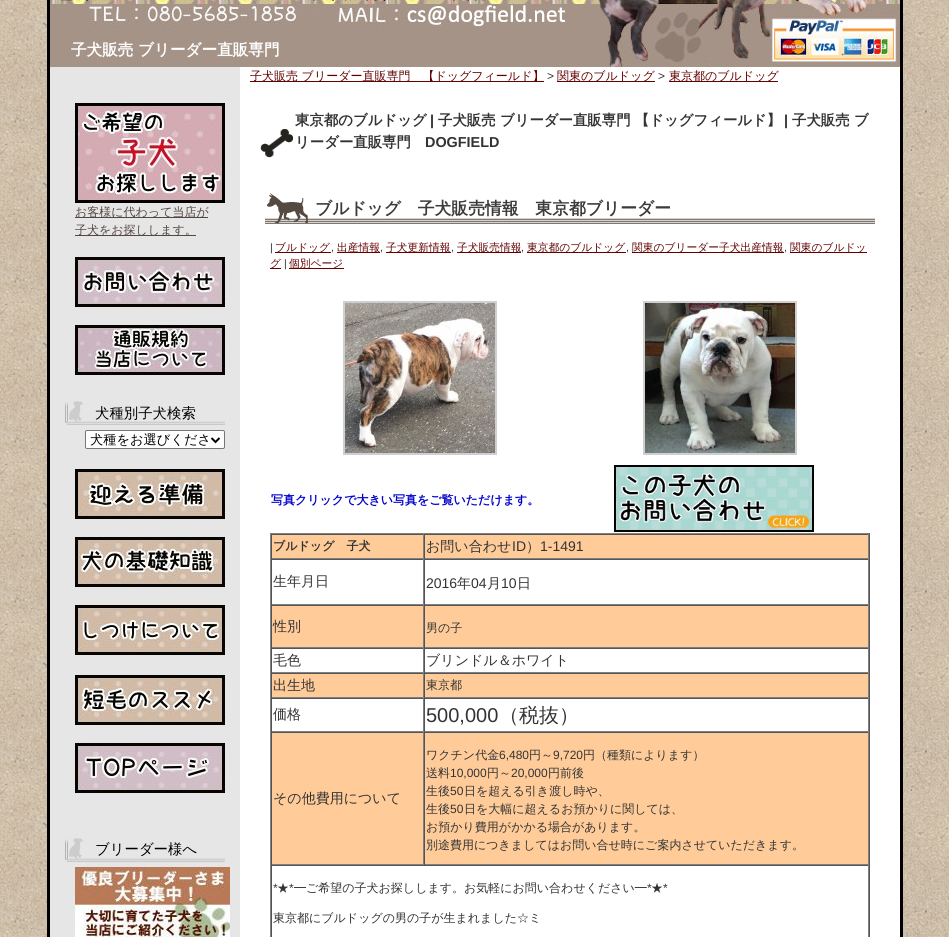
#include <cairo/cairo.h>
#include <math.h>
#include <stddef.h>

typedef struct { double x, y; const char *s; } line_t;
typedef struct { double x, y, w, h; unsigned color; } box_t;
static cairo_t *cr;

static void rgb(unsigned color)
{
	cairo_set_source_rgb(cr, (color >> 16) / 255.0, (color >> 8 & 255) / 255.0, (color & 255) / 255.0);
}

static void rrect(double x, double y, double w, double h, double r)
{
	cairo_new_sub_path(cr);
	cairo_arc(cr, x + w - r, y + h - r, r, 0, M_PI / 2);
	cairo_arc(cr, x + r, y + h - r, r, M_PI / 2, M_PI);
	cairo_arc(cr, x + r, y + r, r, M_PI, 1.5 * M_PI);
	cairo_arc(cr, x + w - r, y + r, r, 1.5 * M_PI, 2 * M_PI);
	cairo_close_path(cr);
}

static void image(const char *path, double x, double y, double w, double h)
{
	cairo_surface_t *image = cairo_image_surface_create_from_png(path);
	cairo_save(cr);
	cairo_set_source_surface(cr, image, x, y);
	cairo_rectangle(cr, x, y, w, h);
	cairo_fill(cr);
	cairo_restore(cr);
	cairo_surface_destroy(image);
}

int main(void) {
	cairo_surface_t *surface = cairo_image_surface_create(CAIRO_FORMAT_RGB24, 949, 937);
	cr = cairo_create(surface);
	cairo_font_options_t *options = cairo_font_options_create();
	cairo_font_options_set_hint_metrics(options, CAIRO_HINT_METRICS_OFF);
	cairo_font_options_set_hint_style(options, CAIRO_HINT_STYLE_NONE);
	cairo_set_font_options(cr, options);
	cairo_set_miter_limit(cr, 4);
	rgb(0xffffff);
	cairo_paint(cr);
	image("img/1.png", 0, 0, 949, 937);
	{
		static const box_t items[] = {
			{240, 67, 660, 870, 0xffffff},
			{900, 0, 3, 937, 0x000000},
			{47, 0, 3, 937, 0x000000},
		};
		for (size_t i = 0; i < sizeof items / sizeof *items; i++) {
			rgb(items[i].color);
			cairo_rectangle(cr, items[i].x, items[i].y, items[i].w, items[i].h);
			cairo_fill(cr);
		}
	}
	image("img/2.png", 50, 0, 850, 67);
	{
		static const box_t items[] = {
			{50, 67, 190, 870, 0xe6e6e6},
			{250, 81, 294, 1, 0x630000},
			{557, 81, 98, 1, 0x630000},
			{669, 81, 109, 1, 0x630000},
		};
		for (size_t i = 0; i < sizeof items / sizeof *items; i++) {
			rgb(items[i].color);
			cairo_rectangle(cr, items[i].x, items[i].y, items[i].w, items[i].h);
			cairo_fill(cr);
		}
	}
	image("img/3.png", 75, 103, 150, 100);
	rgb(0x534741);
	cairo_rectangle(cr, 75, 217, 133, 1);
	cairo_fill(cr);
	cairo_rectangle(cr, 75, 235, 121, 1);
	cairo_fill(cr);
	image("img/4.png", 75, 257, 150, 50);
	image("img/5.png", 75, 325, 150, 50);
	image("img/6.png", 65, 401, 160, 24);
	rgb(0xffffff);
	rrect(85.5, 430.5, 139, 18, 1.5);
	cairo_fill_preserve(cr);
	rgb(0x767676);
	cairo_set_line_width(cr, 1);
	cairo_stroke(cr);
	cairo_new_path(cr);
	cairo_move_to(cr, 211.5, 438);
	cairo_line_to(cr, 215.5, 442);
	cairo_line_to(cr, 219.5, 438);
	rgb(0x000000);
	cairo_set_line_width(cr, 2);
	cairo_stroke(cr);
	image("img/7.png", 75, 469, 150, 50);
	image("img/8.png", 75, 537, 150, 50);
	image("img/9.png", 75, 605, 150, 50);
	image("img/10.png", 75, 675, 150, 50);
	image("img/11.png", 75, 743, 150, 50);
	image("img/6.png", 65, 838, 160, 24);
	image("img/12.png", 75, 867, 155, 70);
	image("img/13.png", 260, 129, 33, 29);
	image("img/14.png", 265, 193, 610, 31);
	{
		static const box_t items[] = {
			{275, 252, 56, 1, 0x630000},
			{337, 252, 43, 1, 0x630000},
			{386, 252, 65, 1, 0x630000},
			{457, 252, 64, 1, 0x630000},
			{527, 252, 99, 1, 0x630000},
			{632, 252, 152, 1, 0x630000},
			{790, 252, 77, 1, 0x630000},
			{270, 268, 11, 1, 0x630000},
			{289, 268, 55, 1, 0x630000},
		};
		for (size_t i = 0; i < sizeof items / sizeof *items; i++) {
			rgb(items[i].color);
			cairo_rectangle(cr, items[i].x, items[i].y, items[i].w, items[i].h);
			cairo_fill(cr);
		}
	}
	cairo_rectangle(cr, 344, 302, 152, 152);
	rgb(0xcfcfcf);
	cairo_stroke(cr);
	image("img/15.png", 345, 303, 150, 150);
	cairo_rectangle(cr, 644, 302, 152, 152);
	cairo_stroke(cr);
	image("img/16.png", 645, 303, 150, 150);
	image("img/17.png", 614, 465, 200, 67);
	{
		static const box_t items[] = {
			{270, 533, 600, 1, 0x808080},
			{869, 533, 1, 404, 0x555555},
			{270, 533, 1, 404, 0x808080},
			{272, 535, 151, 23, 0xffcc99},
			{271, 534, 598, 1, 0x555555},
			{423, 534, 1, 25, 0x808080},
			{271, 558, 153, 1, 0x808080},
			{271, 534, 1, 25, 0x555555},
			{425, 535, 443, 23, 0xffcc99},
			{868, 534, 1, 25, 0x808080},
			{424, 558, 445, 1, 0x808080},
			{424, 534, 1, 25, 0x555555},
			{271, 559, 598, 1, 0x555555},
			{423, 559, 1, 46, 0x808080},
			{271, 604, 153, 1, 0x808080},
			{271, 559, 1, 46, 0x555555},
			{868, 559, 1, 46, 0x808080},
			{424, 604, 445, 1, 0x808080},
			{424, 559, 1, 46, 0x555555},
			{272, 606, 151, 41, 0xffcc99},
			{271, 605, 598, 1, 0x555555},
			{423, 605, 1, 43, 0x808080},
			{271, 647, 153, 1, 0x808080},
			{271, 605, 1, 43, 0x555555},
			{425, 606, 443, 41, 0xffcc99},
			{868, 605, 1, 43, 0x808080},
			{424, 647, 445, 1, 0x808080},
			{424, 605, 1, 43, 0x555555},
			{271, 648, 598, 1, 0x555555},
			{423, 648, 1, 25, 0x808080},
			{271, 672, 153, 1, 0x808080},
			{271, 648, 1, 25, 0x555555},
			{868, 648, 1, 25, 0x808080},
			{424, 672, 445, 1, 0x808080},
			{424, 648, 1, 25, 0x555555},
			{272, 674, 151, 23, 0xffcc99},
			{271, 673, 598, 1, 0x555555},
			{423, 673, 1, 25, 0x808080},
			{271, 697, 153, 1, 0x808080},
			{271, 673, 1, 25, 0x555555},
			{425, 674, 443, 23, 0xffcc99},
			{868, 673, 1, 25, 0x808080},
			{424, 697, 445, 1, 0x808080},
			{424, 673, 1, 25, 0x555555},
			{271, 698, 598, 1, 0x555555},
			{423, 698, 1, 34, 0x808080},
			{271, 731, 153, 1, 0x808080},
			{271, 698, 1, 34, 0x555555},
			{868, 698, 1, 34, 0x808080},
			{424, 731, 445, 1, 0x808080},
			{424, 698, 1, 34, 0x555555},
			{272, 733, 151, 131, 0xffcc99},
			{271, 732, 598, 1, 0x555555},
			{423, 732, 1, 133, 0x808080},
			{271, 864, 153, 1, 0x808080},
			{271, 732, 1, 133, 0x555555},
			{425, 733, 443, 131, 0xffcc99},
			{868, 732, 1, 133, 0x808080},
			{424, 864, 445, 1, 0x808080},
			{424, 732, 1, 133, 0x555555},
			{271, 865, 598, 1, 0x555555},
			{868, 865, 1, 72, 0x808080},
			{271, 865, 1, 72, 0x555555},
		};
		for (size_t i = 0; i < sizeof items / sizeof *items; i++) {
			rgb(items[i].color);
			cairo_rectangle(cr, items[i].x, items[i].y, items[i].w, items[i].h);
			cairo_fill(cr);
		}
	}
	cairo_select_font_face(cr, "WenQuanYi Zen Hei", CAIRO_FONT_SLANT_NORMAL, CAIRO_FONT_WEIGHT_BOLD);
	cairo_set_font_size(cr, 15.6);
	rgb(0xffffff);
	cairo_move_to(cr, 71, 55);
	cairo_show_text(cr, "子犬販売 ブリーダー直販専門");
	cairo_select_font_face(cr, "WenQuanYi Zen Hei Medium", CAIRO_FONT_SLANT_NORMAL, CAIRO_FONT_WEIGHT_NORMAL);
	cairo_set_font_size(cr, 12);
	rgb(0x630000);
	cairo_move_to(cr, 250, 80);
	cairo_show_text(cr, "子犬販売 ブリーダー直販専門　【ドッグフィールド】");
	cairo_select_font_face(cr, "Liberation Sans", CAIRO_FONT_SLANT_NORMAL, CAIRO_FONT_WEIGHT_NORMAL);
	rgb(0x333333);
	cairo_move_to(cr, 547, 80);
	cairo_show_text(cr, ">");
	cairo_select_font_face(cr, "WenQuanYi Zen Hei Medium", CAIRO_FONT_SLANT_NORMAL, CAIRO_FONT_WEIGHT_NORMAL);
	rgb(0x630000);
	cairo_move_to(cr, 557, 80);
	cairo_show_text(cr, "関東のブルドッグ");
	cairo_select_font_face(cr, "Liberation Sans", CAIRO_FONT_SLANT_NORMAL, CAIRO_FONT_WEIGHT_NORMAL);
	rgb(0x333333);
	cairo_move_to(cr, 658, 80);
	cairo_show_text(cr, ">");
	cairo_select_font_face(cr, "WenQuanYi Zen Hei Medium", CAIRO_FONT_SLANT_NORMAL, CAIRO_FONT_WEIGHT_NORMAL);
	rgb(0x630000);
	cairo_move_to(cr, 669, 80);
	cairo_show_text(cr, "東京都のブルドッグ");
	rgb(0x534741);
	cairo_move_to(cr, 75, 216);
	cairo_show_text(cr, "お客様に代わって当店が");
	cairo_move_to(cr, 75, 234);
	cairo_show_text(cr, "子犬をお探しします。");
	cairo_set_font_size(cr, 14.4);
	rgb(0x000000);
	cairo_move_to(cr, 95, 418);
	cairo_show_text(cr, "犬種別子犬検索");
	cairo_set_font_size(cr, 13.25);
	cairo_move_to(cr, 90, 444);
	cairo_show_text(cr, "犬種をお選びくださ");
	cairo_set_font_size(cr, 14.4);
	cairo_move_to(cr, 95, 854);
	cairo_show_text(cr, "ブリーダー様へ");
	cairo_select_font_face(cr, "WenQuanYi Zen Hei", CAIRO_FONT_SLANT_NORMAL, CAIRO_FONT_WEIGHT_BOLD);
	rgb(0x333333);
	cairo_move_to(cr, 295, 125);
	cairo_show_text(cr, "東京都のブルドッグ");
	cairo_select_font_face(cr, "Liberation Sans", CAIRO_FONT_SLANT_NORMAL, CAIRO_FONT_WEIGHT_BOLD);
	cairo_move_to(cr, 430, 125);
	cairo_show_text(cr, "|");
	cairo_select_font_face(cr, "WenQuanYi Zen Hei", CAIRO_FONT_SLANT_NORMAL, CAIRO_FONT_WEIGHT_BOLD);
	cairo_move_to(cr, 438, 125);
	cairo_show_text(cr, "子犬販売 ブリーダー直販専門 【ドッグフィールド】");
	cairo_select_font_face(cr, "Liberation Sans", CAIRO_FONT_SLANT_NORMAL, CAIRO_FONT_WEIGHT_BOLD);
	cairo_move_to(cr, 784, 125);
	cairo_show_text(cr, "|");
	cairo_select_font_face(cr, "WenQuanYi Zen Hei", CAIRO_FONT_SLANT_NORMAL, CAIRO_FONT_WEIGHT_BOLD);
	cairo_move_to(cr, 792, 125);
	cairo_show_text(cr, "子犬販売 ブ");
	cairo_move_to(cr, 295, 147);
	cairo_show_text(cr, "リーダー直販専門");
	cairo_select_font_face(cr, "Liberation Sans", CAIRO_FONT_SLANT_NORMAL, CAIRO_FONT_WEIGHT_BOLD);
	cairo_move_to(cr, 425, 147);
	cairo_show_text(cr, "DOGFIELD");
	cairo_select_font_face(cr, "WenQuanYi Zen Hei", CAIRO_FONT_SLANT_NORMAL, CAIRO_FONT_WEIGHT_BOLD);
	cairo_set_font_size(cr, 16.8);
	rgb(0x3b3b3b);
	cairo_move_to(cr, 315, 214);
	cairo_show_text(cr, "ブルドッグ　子犬販売情報　東京都ブリーダー");
	cairo_select_font_face(cr, "Liberation Sans", CAIRO_FONT_SLANT_NORMAL, CAIRO_FONT_WEIGHT_NORMAL);
	cairo_set_font_size(cr, 10.75);
	rgb(0x333333);
	cairo_move_to(cr, 270, 251);
	cairo_show_text(cr, "|");
	cairo_select_font_face(cr, "WenQuanYi Zen Hei Medium", CAIRO_FONT_SLANT_NORMAL, CAIRO_FONT_WEIGHT_NORMAL);
	rgb(0x630000);
	cairo_move_to(cr, 275, 251);
	cairo_show_text(cr, "ブルドッグ");
	cairo_select_font_face(cr, "Liberation Sans", CAIRO_FONT_SLANT_NORMAL, CAIRO_FONT_WEIGHT_NORMAL);
	rgb(0x333333);
	cairo_move_to(cr, 331, 251);
	cairo_show_text(cr, ",");
	cairo_select_font_face(cr, "WenQuanYi Zen Hei Medium", CAIRO_FONT_SLANT_NORMAL, CAIRO_FONT_WEIGHT_NORMAL);
	rgb(0x630000);
	cairo_move_to(cr, 337, 251);
	cairo_show_text(cr, "出産情報");
	cairo_select_font_face(cr, "Liberation Sans", CAIRO_FONT_SLANT_NORMAL, CAIRO_FONT_WEIGHT_NORMAL);
	rgb(0x333333);
	cairo_move_to(cr, 380, 251);
	cairo_show_text(cr, ",");
	cairo_select_font_face(cr, "WenQuanYi Zen Hei Medium", CAIRO_FONT_SLANT_NORMAL, CAIRO_FONT_WEIGHT_NORMAL);
	rgb(0x630000);
	cairo_move_to(cr, 386, 251);
	cairo_show_text(cr, "子犬更新情報");
	cairo_select_font_face(cr, "Liberation Sans", CAIRO_FONT_SLANT_NORMAL, CAIRO_FONT_WEIGHT_NORMAL);
	rgb(0x333333);
	cairo_move_to(cr, 451, 251);
	cairo_show_text(cr, ",");
	cairo_select_font_face(cr, "WenQuanYi Zen Hei Medium", CAIRO_FONT_SLANT_NORMAL, CAIRO_FONT_WEIGHT_NORMAL);
	rgb(0x630000);
	cairo_move_to(cr, 457, 251);
	cairo_show_text(cr, "子犬販売情報");
	cairo_select_font_face(cr, "Liberation Sans", CAIRO_FONT_SLANT_NORMAL, CAIRO_FONT_WEIGHT_NORMAL);
	rgb(0x333333);
	cairo_move_to(cr, 521, 251);
	cairo_show_text(cr, ",");
	cairo_select_font_face(cr, "WenQuanYi Zen Hei Medium", CAIRO_FONT_SLANT_NORMAL, CAIRO_FONT_WEIGHT_NORMAL);
	rgb(0x630000);
	cairo_move_to(cr, 527, 251);
	cairo_show_text(cr, "東京都のブルドッグ");
	cairo_select_font_face(cr, "Liberation Sans", CAIRO_FONT_SLANT_NORMAL, CAIRO_FONT_WEIGHT_NORMAL);
	rgb(0x333333);
	cairo_move_to(cr, 626, 251);
	cairo_show_text(cr, ",");
	cairo_select_font_face(cr, "WenQuanYi Zen Hei Medium", CAIRO_FONT_SLANT_NORMAL, CAIRO_FONT_WEIGHT_NORMAL);
	rgb(0x630000);
	cairo_move_to(cr, 632, 251);
	cairo_show_text(cr, "関東のブリーダー子犬出産情報");
	cairo_select_font_face(cr, "Liberation Sans", CAIRO_FONT_SLANT_NORMAL, CAIRO_FONT_WEIGHT_NORMAL);
	rgb(0x333333);
	cairo_move_to(cr, 784, 251);
	cairo_show_text(cr, ",");
	cairo_select_font_face(cr, "WenQuanYi Zen Hei Medium", CAIRO_FONT_SLANT_NORMAL, CAIRO_FONT_WEIGHT_NORMAL);
	rgb(0x630000);
	cairo_move_to(cr, 790, 251);
	cairo_show_text(cr, "関東のブルドッ");
	cairo_move_to(cr, 270, 267);
	cairo_show_text(cr, "グ");
	cairo_select_font_face(cr, "Liberation Sans", CAIRO_FONT_SLANT_NORMAL, CAIRO_FONT_WEIGHT_NORMAL);
	rgb(0x333333);
	cairo_move_to(cr, 284, 267);
	cairo_show_text(cr, "|");
	cairo_select_font_face(cr, "WenQuanYi Zen Hei Medium", CAIRO_FONT_SLANT_NORMAL, CAIRO_FONT_WEIGHT_NORMAL);
	rgb(0x630000);
	cairo_move_to(cr, 289, 267);
	cairo_show_text(cr, "個別ページ");
	cairo_select_font_face(cr, "WenQuanYi Zen Hei", CAIRO_FONT_SLANT_NORMAL, CAIRO_FONT_WEIGHT_BOLD);
	cairo_set_font_size(cr, 12);
	rgb(0x0000cd);
	cairo_move_to(cr, 271, 504);
	cairo_show_text(cr, "写真クリックで大きい写真をご覧いただけます。");
	rgb(0x333333);
	cairo_move_to(cr, 273, 550);
	cairo_show_text(cr, "ブルドッグ　子犬");
	cairo_select_font_face(cr, "WenQuanYi Zen Hei Medium", CAIRO_FONT_SLANT_NORMAL, CAIRO_FONT_WEIGHT_NORMAL);
	cairo_set_font_size(cr, 14);
	cairo_move_to(cr, 426, 551);
	cairo_show_text(cr, "お問い合わせ");
	cairo_select_font_face(cr, "Liberation Sans", CAIRO_FONT_SLANT_NORMAL, CAIRO_FONT_WEIGHT_NORMAL);
	cairo_move_to(cr, 512, 551);
	cairo_show_text(cr, "ID");
	cairo_select_font_face(cr, "WenQuanYi Zen Hei Medium", CAIRO_FONT_SLANT_NORMAL, CAIRO_FONT_WEIGHT_NORMAL);
	cairo_move_to(cr, 526, 551);
	cairo_show_text(cr, "）");
	cairo_select_font_face(cr, "Liberation Sans", CAIRO_FONT_SLANT_NORMAL, CAIRO_FONT_WEIGHT_NORMAL);
	cairo_move_to(cr, 540, 551);
	cairo_show_text(cr, "1-1491");
	cairo_select_font_face(cr, "WenQuanYi Zen Hei Medium", CAIRO_FONT_SLANT_NORMAL, CAIRO_FONT_WEIGHT_NORMAL);
	cairo_move_to(cr, 273, 586);
	cairo_show_text(cr, "生年月日");
	cairo_select_font_face(cr, "Liberation Sans", CAIRO_FONT_SLANT_NORMAL, CAIRO_FONT_WEIGHT_NORMAL);
	cairo_move_to(cr, 426, 588);
	cairo_show_text(cr, "2016");
	cairo_select_font_face(cr, "WenQuanYi Zen Hei Medium", CAIRO_FONT_SLANT_NORMAL, CAIRO_FONT_WEIGHT_NORMAL);
	cairo_move_to(cr, 457, 588);
	cairo_show_text(cr, "年");
	cairo_select_font_face(cr, "Liberation Sans", CAIRO_FONT_SLANT_NORMAL, CAIRO_FONT_WEIGHT_NORMAL);
	cairo_move_to(cr, 471, 588);
	cairo_show_text(cr, "04");
	cairo_select_font_face(cr, "WenQuanYi Zen Hei Medium", CAIRO_FONT_SLANT_NORMAL, CAIRO_FONT_WEIGHT_NORMAL);
	cairo_move_to(cr, 487, 588);
	cairo_show_text(cr, "月");
	cairo_select_font_face(cr, "Liberation Sans", CAIRO_FONT_SLANT_NORMAL, CAIRO_FONT_WEIGHT_NORMAL);
	cairo_move_to(cr, 501, 588);
	cairo_show_text(cr, "10");
	cairo_select_font_face(cr, "WenQuanYi Zen Hei Medium", CAIRO_FONT_SLANT_NORMAL, CAIRO_FONT_WEIGHT_NORMAL);
	cairo_move_to(cr, 517, 588);
	cairo_show_text(cr, "日");
	cairo_move_to(cr, 273, 631);
	cairo_show_text(cr, "性別");
	cairo_set_font_size(cr, 12);
	cairo_move_to(cr, 426, 632);
	cairo_show_text(cr, "男の子");
	cairo_set_font_size(cr, 14);
	{
		static const line_t items[] = {
			{273, 665, "毛色"},
			{426, 665, "ブリンドル＆ホワイト"},
			{273, 690, "出生地"},
		};
		for (size_t i = 0; i < sizeof items / sizeof *items; i++) {
			cairo_move_to(cr, items[i].x, items[i].y);
			cairo_show_text(cr, items[i].s);
		}
	}
	cairo_set_font_size(cr, 12);
	cairo_move_to(cr, 426, 689);
	cairo_show_text(cr, "東京都");
	cairo_set_font_size(cr, 14);
	cairo_move_to(cr, 273, 719);
	cairo_show_text(cr, "価格");
	cairo_select_font_face(cr, "Liberation Sans", CAIRO_FONT_SLANT_NORMAL, CAIRO_FONT_WEIGHT_NORMAL);
	cairo_set_font_size(cr, 20);
	cairo_move_to(cr, 426, 722);
	cairo_show_text(cr, "500,000");
	cairo_select_font_face(cr, "WenQuanYi Zen Hei Medium", CAIRO_FONT_SLANT_NORMAL, CAIRO_FONT_WEIGHT_NORMAL);
	cairo_move_to(cr, 499, 722);
	cairo_show_text(cr, "（税抜）");
	cairo_set_font_size(cr, 14);
	cairo_move_to(cr, 273, 803);
	cairo_show_text(cr, "その他費用について");
	cairo_set_font_size(cr, 12);
	cairo_move_to(cr, 426, 759);
	cairo_show_text(cr, "ワクチン代金");
	cairo_select_font_face(cr, "Liberation Sans", CAIRO_FONT_SLANT_NORMAL, CAIRO_FONT_WEIGHT_NORMAL);
	cairo_move_to(cr, 499, 759);
	cairo_show_text(cr, "6,480");
	cairo_select_font_face(cr, "WenQuanYi Zen Hei Medium", CAIRO_FONT_SLANT_NORMAL, CAIRO_FONT_WEIGHT_NORMAL);
	cairo_move_to(cr, 529, 759);
	cairo_show_text(cr, "円～");
	cairo_select_font_face(cr, "Liberation Sans", CAIRO_FONT_SLANT_NORMAL, CAIRO_FONT_WEIGHT_NORMAL);
	cairo_move_to(cr, 553, 759);
	cairo_show_text(cr, "9,720");
	cairo_select_font_face(cr, "WenQuanYi Zen Hei Medium", CAIRO_FONT_SLANT_NORMAL, CAIRO_FONT_WEIGHT_NORMAL);
	cairo_move_to(cr, 583, 759);
	cairo_show_text(cr, "円（種類によります）");
	cairo_move_to(cr, 426, 777);
	cairo_show_text(cr, "送料");
	cairo_select_font_face(cr, "Liberation Sans", CAIRO_FONT_SLANT_NORMAL, CAIRO_FONT_WEIGHT_NORMAL);
	cairo_move_to(cr, 450, 777);
	cairo_show_text(cr, "10,000");
	cairo_select_font_face(cr, "WenQuanYi Zen Hei Medium", CAIRO_FONT_SLANT_NORMAL, CAIRO_FONT_WEIGHT_NORMAL);
	cairo_move_to(cr, 487, 777);
	cairo_show_text(cr, "円～");
	cairo_select_font_face(cr, "Liberation Sans", CAIRO_FONT_SLANT_NORMAL, CAIRO_FONT_WEIGHT_NORMAL);
	cairo_move_to(cr, 511, 777);
	cairo_show_text(cr, "20,000");
	cairo_select_font_face(cr, "WenQuanYi Zen Hei Medium", CAIRO_FONT_SLANT_NORMAL, CAIRO_FONT_WEIGHT_NORMAL);
	cairo_move_to(cr, 548, 777);
	cairo_show_text(cr, "円前後");
	cairo_move_to(cr, 426, 795);
	cairo_show_text(cr, "生後");
	cairo_select_font_face(cr, "Liberation Sans", CAIRO_FONT_SLANT_NORMAL, CAIRO_FONT_WEIGHT_NORMAL);
	cairo_move_to(cr, 450, 795);
	cairo_show_text(cr, "50");
	cairo_select_font_face(cr, "WenQuanYi Zen Hei Medium", CAIRO_FONT_SLANT_NORMAL, CAIRO_FONT_WEIGHT_NORMAL);
	cairo_move_to(cr, 464, 795);
	cairo_show_text(cr, "日を超える引き渡し時や、");
	cairo_move_to(cr, 426, 813);
	cairo_show_text(cr, "生後");
	cairo_select_font_face(cr, "Liberation Sans", CAIRO_FONT_SLANT_NORMAL, CAIRO_FONT_WEIGHT_NORMAL);
	cairo_move_to(cr, 450, 813);
	cairo_show_text(cr, "50");
	cairo_select_font_face(cr, "WenQuanYi Zen Hei Medium", CAIRO_FONT_SLANT_NORMAL, CAIRO_FONT_WEIGHT_NORMAL);
	{
		static const line_t items[] = {
			{464, 813, "日を大幅に超えるお預かりに関しては、"},
			{426, 831, "お預かり費用がかかる場合があります。"},
			{426, 849, "別途費用につきましてはお問い合せ時にご案内させていただきます。"},
		};
		for (size_t i = 0; i < sizeof items / sizeof *items; i++) {
			cairo_move_to(cr, items[i].x, items[i].y);
			cairo_show_text(cr, items[i].s);
		}
	}
	cairo_select_font_face(cr, "Liberation Sans", CAIRO_FONT_SLANT_NORMAL, CAIRO_FONT_WEIGHT_NORMAL);
	cairo_move_to(cr, 273, 892);
	cairo_show_text(cr, "*");
	cairo_select_font_face(cr, "WenQuanYi Zen Hei Medium", CAIRO_FONT_SLANT_NORMAL, CAIRO_FONT_WEIGHT_NORMAL);
	cairo_move_to(cr, 277, 892);
	cairo_show_text(cr, "★");
	cairo_select_font_face(cr, "Liberation Sans", CAIRO_FONT_SLANT_NORMAL, CAIRO_FONT_WEIGHT_NORMAL);
	cairo_move_to(cr, 289, 892);
	cairo_show_text(cr, "*");
	cairo_select_font_face(cr, "WenQuanYi Zen Hei Medium", CAIRO_FONT_SLANT_NORMAL, CAIRO_FONT_WEIGHT_NORMAL);
	cairo_move_to(cr, 294, 892);
	cairo_show_text(cr, "━ご希望の子犬お探しします。お気軽にお問い合わせください━");
	cairo_select_font_face(cr, "Liberation Sans", CAIRO_FONT_SLANT_NORMAL, CAIRO_FONT_WEIGHT_NORMAL);
	cairo_move_to(cr, 647, 892);
	cairo_show_text(cr, "*");
	cairo_select_font_face(cr, "WenQuanYi Zen Hei Medium", CAIRO_FONT_SLANT_NORMAL, CAIRO_FONT_WEIGHT_NORMAL);
	cairo_move_to(cr, 651, 892);
	cairo_show_text(cr, "★");
	cairo_select_font_face(cr, "Liberation Sans", CAIRO_FONT_SLANT_NORMAL, CAIRO_FONT_WEIGHT_NORMAL);
	cairo_move_to(cr, 663, 892);
	cairo_show_text(cr, "*");
	cairo_select_font_face(cr, "WenQuanYi Zen Hei Medium", CAIRO_FONT_SLANT_NORMAL, CAIRO_FONT_WEIGHT_NORMAL);
	cairo_move_to(cr, 273, 922);
	cairo_show_text(cr, "東京都にブルドッグの男の子が生まれました☆ミ");
	cairo_surface_write_to_png(surface, "page.png");
	cairo_font_options_destroy(options);
	cairo_destroy(cr);
	cairo_surface_destroy(surface);
	return 0;
}
